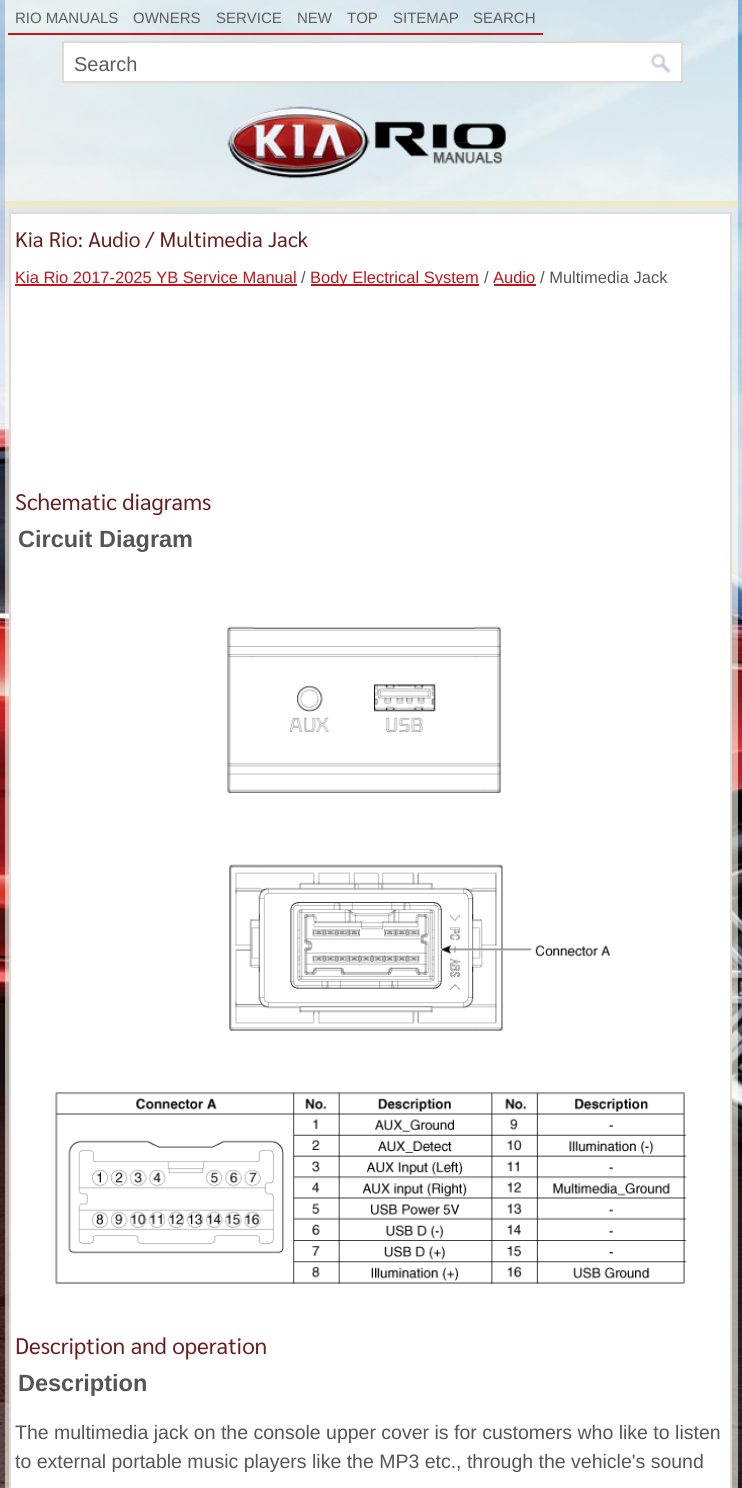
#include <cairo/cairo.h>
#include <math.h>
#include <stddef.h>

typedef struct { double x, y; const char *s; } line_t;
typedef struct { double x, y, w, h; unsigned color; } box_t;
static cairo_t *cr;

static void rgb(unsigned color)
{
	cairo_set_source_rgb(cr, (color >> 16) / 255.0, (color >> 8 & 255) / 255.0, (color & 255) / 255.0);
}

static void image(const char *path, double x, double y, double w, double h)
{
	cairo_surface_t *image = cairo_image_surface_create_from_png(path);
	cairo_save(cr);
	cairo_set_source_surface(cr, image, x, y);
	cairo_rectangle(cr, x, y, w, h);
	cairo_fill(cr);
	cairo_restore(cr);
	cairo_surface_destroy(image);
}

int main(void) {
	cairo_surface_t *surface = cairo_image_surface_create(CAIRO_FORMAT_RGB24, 742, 1488);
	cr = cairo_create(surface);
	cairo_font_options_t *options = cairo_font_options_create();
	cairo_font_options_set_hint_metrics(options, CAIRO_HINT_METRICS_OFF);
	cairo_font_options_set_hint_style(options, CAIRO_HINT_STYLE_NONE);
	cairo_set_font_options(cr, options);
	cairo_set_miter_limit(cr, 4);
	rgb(0xffffff);
	cairo_paint(cr);
	image("img/1.png", 0, 0, 742, 1488);
	cairo_set_source_rgba(cr, 1, 1, 1, 0.3);
	cairo_rectangle(cr, 5, 0, 733, 201);
	cairo_fill(cr);
	rgb(0xede9cb);
	cairo_rectangle(cr, 5, 201, 733, 6);
	cairo_fill(cr);
	rgb(0xd60e16);
	cairo_rectangle(cr, 8, 33, 535, 2);
	cairo_fill(cr);
	rgb(0xffffff);
	cairo_rectangle(cr, 63, 42, 619, 40);
	cairo_fill_preserve(cr);
	rgb(0xe1d8d8);
	cairo_stroke(cr);
	image("img/2.png", 650, 53, 21, 21);
	image("img/3.png", 227, 106, 280, 73);
	rgb(0xffffff);
	cairo_rectangle(cr, 10, 213, 721, 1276);
	cairo_fill_preserve(cr);
	rgb(0xe1d8d8);
	cairo_stroke(cr);
	{
		static const box_t items[] = {
			{15, 284, 282, 2, 0xbf151c},
			{311, 284, 168, 2, 0xbf151c},
			{494, 284, 42, 2, 0xbf151c},
		};
		for (size_t i = 0; i < sizeof items / sizeof *items; i++) {
			rgb(items[i].color);
			cairo_rectangle(cr, items[i].x, items[i].y, items[i].w, items[i].h);
			cairo_fill(cr);
		}
	}
	image("img/4.png", 55, 626, 632, 659);
	cairo_select_font_face(cr, "Liberation Sans", CAIRO_FONT_SLANT_NORMAL, CAIRO_FONT_WEIGHT_NORMAL);
	cairo_set_font_size(cr, 15);
	rgb(0x5d5d5d);
	{
		static const line_t items[] = {
			{15, 23, "RIO MANUALS"},
			{133, 23, "OWNERS"},
			{216, 23, "SERVICE"},
			{297, 23, "NEW"},
			{347, 23, "TOP"},
			{393, 23, "SITEMAP"},
			{473, 23, "SEARCH"},
		};
		for (size_t i = 0; i < sizeof items / sizeof *items; i++) {
			cairo_move_to(cr, items[i].x, items[i].y);
			cairo_show_text(cr, items[i].s);
		}
	}
	cairo_set_font_size(cr, 20);
	cairo_move_to(cr, 74, 71);
	cairo_show_text(cr, "Search");
	cairo_select_font_face(cr, "Sarabun", CAIRO_FONT_SLANT_NORMAL, CAIRO_FONT_WEIGHT_NORMAL);
	cairo_set_font_size(cr, 21);
	rgb(0x681d21);
	cairo_move_to(cr, 15, 247);
	cairo_show_text(cr, "Kia Rio: Audio / Multimedia Jack");
	cairo_select_font_face(cr, "Liberation Sans", CAIRO_FONT_SLANT_NORMAL, CAIRO_FONT_WEIGHT_NORMAL);
	cairo_set_font_size(cr, 16.5);
	rgb(0xbf151c);
	cairo_move_to(cr, 15, 283);
	cairo_show_text(cr, "Kia Rio 2017-2025 YB Service Manual");
	rgb(0x555555);
	cairo_move_to(cr, 301, 283);
	cairo_show_text(cr, "/");
	rgb(0xbf151c);
	cairo_move_to(cr, 310, 283);
	cairo_show_text(cr, "Body Electrical System");
	rgb(0x555555);
	cairo_move_to(cr, 484, 283);
	cairo_show_text(cr, "/");
	rgb(0xbf151c);
	cairo_move_to(cr, 493, 283);
	cairo_show_text(cr, "Audio");
	rgb(0x555555);
	cairo_move_to(cr, 540, 283);
	cairo_show_text(cr, "/ Multimedia Jack");
	cairo_select_font_face(cr, "Sarabun", CAIRO_FONT_SLANT_NORMAL, CAIRO_FONT_WEIGHT_NORMAL);
	cairo_set_font_size(cr, 22.5);
	rgb(0x681d21);
	cairo_move_to(cr, 15, 510);
	cairo_show_text(cr, "Schematic diagrams");
	cairo_select_font_face(cr, "Liberation Sans", CAIRO_FONT_SLANT_NORMAL, CAIRO_FONT_WEIGHT_BOLD);
	cairo_set_font_size(cr, 23.5);
	rgb(0x555555);
	cairo_move_to(cr, 18, 547);
	cairo_show_text(cr, "Circuit Diagram");
	cairo_select_font_face(cr, "Sarabun", CAIRO_FONT_SLANT_NORMAL, CAIRO_FONT_WEIGHT_NORMAL);
	cairo_set_font_size(cr, 22.5);
	rgb(0x681d21);
	cairo_move_to(cr, 15, 1354);
	cairo_show_text(cr, "Description and operation");
	cairo_select_font_face(cr, "Liberation Sans", CAIRO_FONT_SLANT_NORMAL, CAIRO_FONT_WEIGHT_BOLD);
	cairo_set_font_size(cr, 23.5);
	rgb(0x555555);
	cairo_move_to(cr, 18, 1391);
	cairo_show_text(cr, "Description");
	cairo_select_font_face(cr, "Liberation Sans", CAIRO_FONT_SLANT_NORMAL, CAIRO_FONT_WEIGHT_NORMAL);
	cairo_set_font_size(cr, 19.5);
	cairo_move_to(cr, 15, 1439);
	cairo_show_text(cr, "The multimedia jack on the console upper cover is for customers who like to listen");
	cairo_move_to(cr, 15, 1468);
	cairo_show_text(cr, "to external portable music players like the MP3 etc., through the vehicle's sound");
	cairo_surface_write_to_png(surface, "page.png");
	cairo_font_options_destroy(options);
	cairo_destroy(cr);
	cairo_surface_destroy(surface);
	return 0;
}
